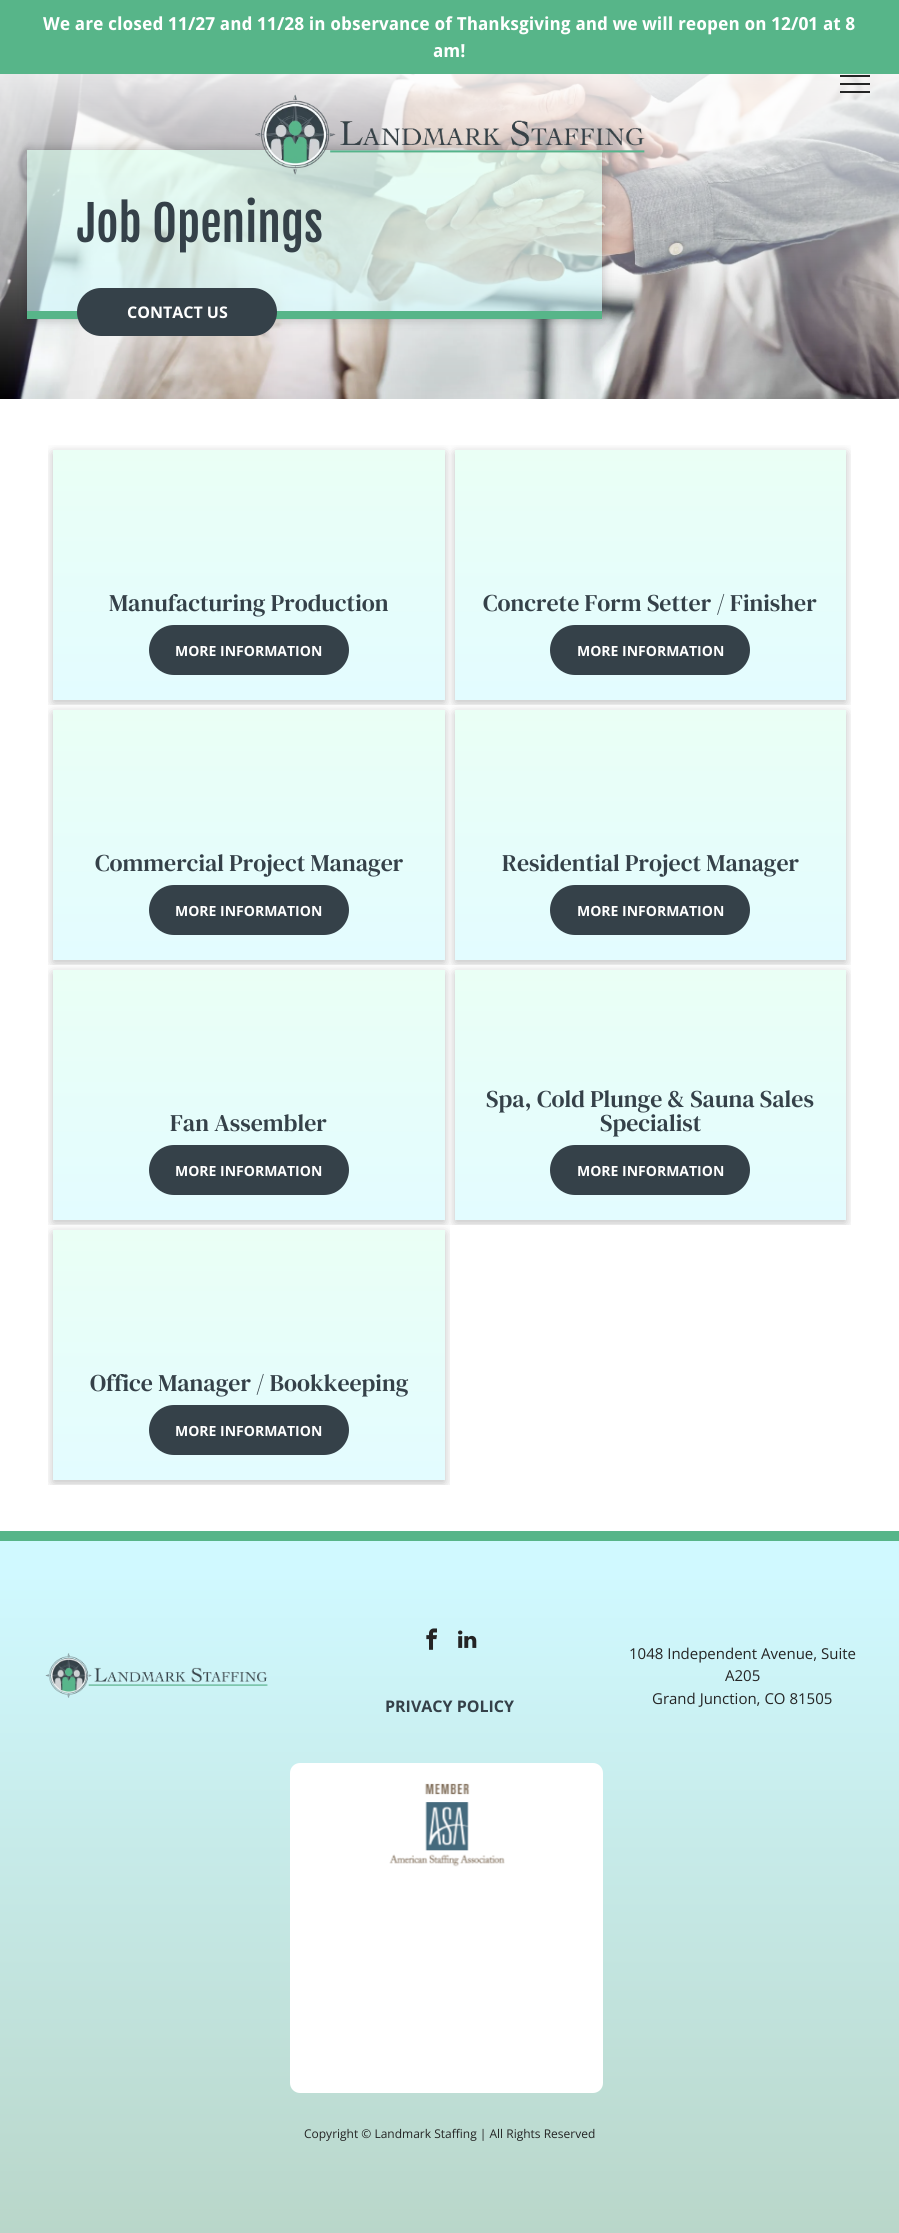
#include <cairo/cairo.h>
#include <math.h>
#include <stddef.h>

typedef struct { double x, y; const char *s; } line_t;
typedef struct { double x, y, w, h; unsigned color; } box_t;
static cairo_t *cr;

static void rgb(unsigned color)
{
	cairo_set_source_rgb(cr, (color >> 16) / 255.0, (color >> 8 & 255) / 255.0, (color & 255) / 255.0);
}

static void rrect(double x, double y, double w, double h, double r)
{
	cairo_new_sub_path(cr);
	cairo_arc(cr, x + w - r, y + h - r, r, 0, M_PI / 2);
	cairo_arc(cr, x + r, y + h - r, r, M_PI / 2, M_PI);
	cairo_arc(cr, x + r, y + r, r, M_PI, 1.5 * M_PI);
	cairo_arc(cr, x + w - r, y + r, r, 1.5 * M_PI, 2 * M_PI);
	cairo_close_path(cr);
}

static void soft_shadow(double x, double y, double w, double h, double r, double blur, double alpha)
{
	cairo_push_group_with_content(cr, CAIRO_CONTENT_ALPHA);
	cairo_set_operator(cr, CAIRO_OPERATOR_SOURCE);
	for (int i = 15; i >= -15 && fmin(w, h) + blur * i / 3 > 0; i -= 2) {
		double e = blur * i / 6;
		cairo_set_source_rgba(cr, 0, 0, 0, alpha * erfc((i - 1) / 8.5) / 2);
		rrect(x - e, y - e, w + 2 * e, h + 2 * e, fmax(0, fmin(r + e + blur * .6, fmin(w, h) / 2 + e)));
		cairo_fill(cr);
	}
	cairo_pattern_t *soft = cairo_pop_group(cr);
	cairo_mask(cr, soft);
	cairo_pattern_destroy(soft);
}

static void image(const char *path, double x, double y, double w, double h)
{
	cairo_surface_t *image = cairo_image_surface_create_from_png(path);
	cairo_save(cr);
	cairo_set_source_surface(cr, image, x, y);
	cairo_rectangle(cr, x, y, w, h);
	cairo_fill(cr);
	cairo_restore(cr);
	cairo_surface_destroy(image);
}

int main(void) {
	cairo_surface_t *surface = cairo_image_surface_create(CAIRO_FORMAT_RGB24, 899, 2233);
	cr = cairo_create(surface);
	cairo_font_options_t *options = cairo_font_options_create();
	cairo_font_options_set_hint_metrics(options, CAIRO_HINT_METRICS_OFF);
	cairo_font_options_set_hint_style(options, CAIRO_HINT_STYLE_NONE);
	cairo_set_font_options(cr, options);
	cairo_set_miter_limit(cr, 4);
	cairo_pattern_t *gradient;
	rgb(0xffffff);
	cairo_paint(cr);
	rgb(0x57b589);
	cairo_rectangle(cr, 0, 0, 899, 74);
	cairo_fill(cr);
	image("img/2.png", 0, 74, 899, 325);
	cairo_save(cr);
	cairo_set_fill_rule(cr, CAIRO_FILL_RULE_EVEN_ODD);
	cairo_new_path(cr);
	cairo_move_to(cr, 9, 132);
	cairo_line_to(cr, 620, 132);
	cairo_line_to(cr, 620, 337);
	cairo_line_to(cr, 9, 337);
	cairo_close_path(cr);
	cairo_move_to(cr, 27, 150);
	cairo_line_to(cr, 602, 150);
	cairo_line_to(cr, 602, 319);
	cairo_line_to(cr, 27, 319);
	cairo_close_path(cr);
	cairo_clip(cr);
	rgb(0x000000);
	soft_shadow(27, 150, 575, 169, 0, 5.5, 0.25);
	cairo_restore(cr);
	image("img/1.png", 255, 94, 390, 81);
	{
		static const box_t items[] = {
			{840, 75, 30, 2, 0x242424},
			{840, 83, 30, 2, 0x242424},
			{840, 91, 30, 2, 0x242424},
			{27, 311, 575, 8, 0x57b589},
		};
		for (size_t i = 0; i < sizeof items / sizeof *items; i++) {
			rgb(items[i].color);
			cairo_rectangle(cr, items[i].x, items[i].y, items[i].w, items[i].h);
			cairo_fill(cr);
		}
	}
	rgb(0x354149);
	rrect(77, 288, 200, 48, 24);
	cairo_fill(cr);
	cairo_save(cr);
	cairo_rectangle(cr, 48, 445, 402, 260);
	cairo_clip(cr);
	rgb(0x000000);
	soft_shadow(53, 453, 392, 250, 0, 5.5, 0.25);
	cairo_restore(cr);
	gradient = cairo_pattern_create_linear(249, 700, 249, 450);
	cairo_pattern_add_color_stop_rgba(gradient, 0, 0.89, 0.988, 1, 1);
	cairo_pattern_add_color_stop_rgba(gradient, 1, 0.918, 1, 0.961, 1);
	cairo_set_source(cr, gradient);
	cairo_pattern_destroy(gradient);
	cairo_rectangle(cr, 53, 450, 392, 250);
	cairo_fill(cr);
	rgb(0x354149);
	rrect(149, 625, 200, 50, 25);
	cairo_fill(cr);
	cairo_save(cr);
	cairo_rectangle(cr, 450, 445, 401, 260);
	cairo_clip(cr);
	rgb(0x000000);
	soft_shadow(455, 453, 391, 250, 0, 5.5, 0.25);
	cairo_restore(cr);
	gradient = cairo_pattern_create_linear(651, 700, 651, 450);
	cairo_pattern_add_color_stop_rgba(gradient, 0, 0.89, 0.988, 1, 1);
	cairo_pattern_add_color_stop_rgba(gradient, 1, 0.918, 1, 0.961, 1);
	cairo_set_source(cr, gradient);
	cairo_pattern_destroy(gradient);
	cairo_rectangle(cr, 455, 450, 391, 250);
	cairo_fill(cr);
	rgb(0x354149);
	rrect(550, 625, 200, 50, 25);
	cairo_fill(cr);
	cairo_save(cr);
	cairo_rectangle(cr, 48, 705, 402, 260);
	cairo_clip(cr);
	rgb(0x000000);
	soft_shadow(53, 713, 392, 250, 0, 5.5, 0.25);
	cairo_restore(cr);
	gradient = cairo_pattern_create_linear(249, 960, 249, 710);
	cairo_pattern_add_color_stop_rgba(gradient, 0, 0.89, 0.988, 1, 1);
	cairo_pattern_add_color_stop_rgba(gradient, 1, 0.918, 1, 0.961, 1);
	cairo_set_source(cr, gradient);
	cairo_pattern_destroy(gradient);
	cairo_rectangle(cr, 53, 710, 392, 250);
	cairo_fill(cr);
	rgb(0x354149);
	rrect(149, 885, 200, 50, 25);
	cairo_fill(cr);
	cairo_save(cr);
	cairo_rectangle(cr, 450, 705, 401, 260);
	cairo_clip(cr);
	rgb(0x000000);
	soft_shadow(455, 713, 391, 250, 0, 5.5, 0.25);
	cairo_restore(cr);
	gradient = cairo_pattern_create_linear(651, 960, 651, 710);
	cairo_pattern_add_color_stop_rgba(gradient, 0, 0.89, 0.988, 1, 1);
	cairo_pattern_add_color_stop_rgba(gradient, 1, 0.918, 1, 0.961, 1);
	cairo_set_source(cr, gradient);
	cairo_pattern_destroy(gradient);
	cairo_rectangle(cr, 455, 710, 391, 250);
	cairo_fill(cr);
	rgb(0x354149);
	rrect(550, 885, 200, 50, 25);
	cairo_fill(cr);
	cairo_save(cr);
	cairo_rectangle(cr, 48, 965, 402, 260);
	cairo_clip(cr);
	rgb(0x000000);
	soft_shadow(53, 973, 392, 250, 0, 5.5, 0.25);
	cairo_restore(cr);
	gradient = cairo_pattern_create_linear(249, 1220, 249, 970);
	cairo_pattern_add_color_stop_rgba(gradient, 0, 0.89, 0.988, 1, 1);
	cairo_pattern_add_color_stop_rgba(gradient, 1, 0.918, 1, 0.961, 1);
	cairo_set_source(cr, gradient);
	cairo_pattern_destroy(gradient);
	cairo_rectangle(cr, 53, 970, 392, 250);
	cairo_fill(cr);
	rgb(0x354149);
	rrect(149, 1145, 200, 50, 25);
	cairo_fill(cr);
	cairo_save(cr);
	cairo_rectangle(cr, 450, 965, 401, 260);
	cairo_clip(cr);
	rgb(0x000000);
	soft_shadow(455, 973, 391, 250, 0, 5.5, 0.25);
	cairo_restore(cr);
	gradient = cairo_pattern_create_linear(651, 1220, 651, 970);
	cairo_pattern_add_color_stop_rgba(gradient, 0, 0.89, 0.988, 1, 1);
	cairo_pattern_add_color_stop_rgba(gradient, 1, 0.918, 1, 0.961, 1);
	cairo_set_source(cr, gradient);
	cairo_pattern_destroy(gradient);
	cairo_rectangle(cr, 455, 970, 391, 250);
	cairo_fill(cr);
	rgb(0x354149);
	rrect(550, 1145, 200, 50, 25);
	cairo_fill(cr);
	cairo_save(cr);
	cairo_rectangle(cr, 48, 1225, 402, 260);
	cairo_clip(cr);
	rgb(0x000000);
	soft_shadow(53, 1233, 392, 250, 0, 5.5, 0.25);
	cairo_restore(cr);
	gradient = cairo_pattern_create_linear(249, 1480, 249, 1230);
	cairo_pattern_add_color_stop_rgba(gradient, 0, 0.89, 0.988, 1, 1);
	cairo_pattern_add_color_stop_rgba(gradient, 1, 0.918, 1, 0.961, 1);
	cairo_set_source(cr, gradient);
	cairo_pattern_destroy(gradient);
	cairo_rectangle(cr, 53, 1230, 392, 250);
	cairo_fill(cr);
	rgb(0x354149);
	rrect(149, 1405, 200, 50, 25);
	cairo_fill(cr);
	rgb(0xd0f9ff);
	cairo_rectangle(cr, 0, 1541, 899, 32);
	cairo_fill(cr);
	rgb(0x57b589);
	cairo_rectangle(cr, 0, 1531, 899, 10);
	cairo_fill(cr);
	gradient = cairo_pattern_create_linear(450, 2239, 450, 1573);
	cairo_pattern_add_color_stop_rgba(gradient, 0, 0.725, 0.839, 0.788, 1);
	cairo_pattern_add_color_stop_rgba(gradient, 1, 0.816, 0.976, 1, 1);
	cairo_set_source(cr, gradient);
	cairo_pattern_destroy(gradient);
	cairo_rectangle(cr, 0, 1573, 899, 660);
	cairo_fill(cr);
	image("img/3.png", 45, 1653, 223, 45);
	image("img/4.png", 426, 1628, 11, 22);
	image("img/5.png", 458, 1630, 19, 18);
	rgb(0xffffff);
	rrect(290, 1763, 313, 330, 10);
	cairo_fill(cr);
	image("img/6.png", 389, 1783, 116, 84);
	cairo_select_font_face(cr, "Droid Sans", CAIRO_FONT_SLANT_NORMAL, CAIRO_FONT_WEIGHT_BOLD);
	cairo_set_font_size(cr, 18);
	cairo_move_to(cr, 43, 30);
	cairo_show_text(cr, "We are closed 11/27 and 11/28 in observance of Thanksgiving and we will reopen on 12/01 at 8");
	cairo_move_to(cr, 433, 57);
	cairo_show_text(cr, "am!");
	cairo_select_font_face(cr, "Fjalla One", CAIRO_FONT_SLANT_NORMAL, CAIRO_FONT_WEIGHT_NORMAL);
	cairo_set_font_size(cr, 48);
	rgb(0x354149);
	cairo_move_to(cr, 77, 242);
	cairo_show_text(cr, "Job Openings");
	cairo_select_font_face(cr, "Open Sans", CAIRO_FONT_SLANT_NORMAL, CAIRO_FONT_WEIGHT_BOLD);
	cairo_set_font_size(cr, 16);
	rgb(0xffffff);
	cairo_move_to(cr, 127, 318);
	cairo_show_text(cr, "CONTACT US");
	cairo_select_font_face(cr, "DM Serif Text", CAIRO_FONT_SLANT_NORMAL, CAIRO_FONT_WEIGHT_NORMAL);
	cairo_set_font_size(cr, 24);
	rgb(0x354149);
	cairo_move_to(cr, 109, 611);
	cairo_show_text(cr, "Manufacturing Production");
	cairo_select_font_face(cr, "Open Sans", CAIRO_FONT_SLANT_NORMAL, CAIRO_FONT_WEIGHT_BOLD);
	cairo_set_font_size(cr, 14);
	rgb(0xffffff);
	cairo_move_to(cr, 175, 656);
	cairo_show_text(cr, "MORE INFORMATION");
	cairo_select_font_face(cr, "DM Serif Text", CAIRO_FONT_SLANT_NORMAL, CAIRO_FONT_WEIGHT_NORMAL);
	cairo_set_font_size(cr, 24);
	rgb(0x354149);
	cairo_move_to(cr, 483, 611);
	cairo_show_text(cr, "Concrete Form Setter / Finisher");
	cairo_select_font_face(cr, "Open Sans", CAIRO_FONT_SLANT_NORMAL, CAIRO_FONT_WEIGHT_BOLD);
	cairo_set_font_size(cr, 14);
	rgb(0xffffff);
	cairo_move_to(cr, 577, 656);
	cairo_show_text(cr, "MORE INFORMATION");
	cairo_select_font_face(cr, "DM Serif Text", CAIRO_FONT_SLANT_NORMAL, CAIRO_FONT_WEIGHT_NORMAL);
	cairo_set_font_size(cr, 24);
	rgb(0x354149);
	cairo_move_to(cr, 95, 871);
	cairo_show_text(cr, "Commercial Project Manager");
	cairo_select_font_face(cr, "Open Sans", CAIRO_FONT_SLANT_NORMAL, CAIRO_FONT_WEIGHT_BOLD);
	cairo_set_font_size(cr, 14);
	rgb(0xffffff);
	cairo_move_to(cr, 175, 916);
	cairo_show_text(cr, "MORE INFORMATION");
	cairo_select_font_face(cr, "DM Serif Text", CAIRO_FONT_SLANT_NORMAL, CAIRO_FONT_WEIGHT_NORMAL);
	cairo_set_font_size(cr, 24);
	rgb(0x354149);
	cairo_move_to(cr, 502, 871);
	cairo_show_text(cr, "Residential Project Manager");
	cairo_select_font_face(cr, "Open Sans", CAIRO_FONT_SLANT_NORMAL, CAIRO_FONT_WEIGHT_BOLD);
	cairo_set_font_size(cr, 14);
	rgb(0xffffff);
	cairo_move_to(cr, 577, 916);
	cairo_show_text(cr, "MORE INFORMATION");
	cairo_select_font_face(cr, "DM Serif Text", CAIRO_FONT_SLANT_NORMAL, CAIRO_FONT_WEIGHT_NORMAL);
	cairo_set_font_size(cr, 24);
	rgb(0x354149);
	cairo_move_to(cr, 170, 1131);
	cairo_show_text(cr, "Fan Assembler");
	cairo_select_font_face(cr, "Open Sans", CAIRO_FONT_SLANT_NORMAL, CAIRO_FONT_WEIGHT_BOLD);
	cairo_set_font_size(cr, 14);
	rgb(0xffffff);
	cairo_move_to(cr, 175, 1176);
	cairo_show_text(cr, "MORE INFORMATION");
	cairo_select_font_face(cr, "DM Serif Text", CAIRO_FONT_SLANT_NORMAL, CAIRO_FONT_WEIGHT_NORMAL);
	cairo_set_font_size(cr, 24);
	rgb(0x354149);
	cairo_move_to(cr, 486, 1107);
	cairo_show_text(cr, "Spa, Cold Plunge & Sauna Sales");
	cairo_move_to(cr, 600, 1131);
	cairo_show_text(cr, "Specialist");
	cairo_select_font_face(cr, "Open Sans", CAIRO_FONT_SLANT_NORMAL, CAIRO_FONT_WEIGHT_BOLD);
	cairo_set_font_size(cr, 14);
	rgb(0xffffff);
	cairo_move_to(cr, 577, 1176);
	cairo_show_text(cr, "MORE INFORMATION");
	cairo_select_font_face(cr, "DM Serif Text", CAIRO_FONT_SLANT_NORMAL, CAIRO_FONT_WEIGHT_NORMAL);
	cairo_set_font_size(cr, 24);
	rgb(0x354149);
	cairo_move_to(cr, 90, 1391);
	cairo_show_text(cr, "Office Manager / Bookkeeping");
	cairo_select_font_face(cr, "Open Sans", CAIRO_FONT_SLANT_NORMAL, CAIRO_FONT_WEIGHT_BOLD);
	cairo_set_font_size(cr, 14);
	rgb(0xffffff);
	cairo_move_to(cr, 175, 1436);
	cairo_show_text(cr, "MORE INFORMATION");
	cairo_select_font_face(cr, "Open Sans", CAIRO_FONT_SLANT_NORMAL, CAIRO_FONT_WEIGHT_NORMAL);
	cairo_set_font_size(cr, 15);
	rgb(0x242424);
	{
		static const line_t items[] = {
			{629, 1659, "1048 Independent Avenue, Suite"},
			{725, 1681, "A205"},
			{652, 1704, "Grand Junction, CO 81505"},
		};
		for (size_t i = 0; i < sizeof items / sizeof *items; i++) {
			cairo_move_to(cr, items[i].x, items[i].y);
			cairo_show_text(cr, items[i].s);
		}
	}
	cairo_select_font_face(cr, "Open Sans", CAIRO_FONT_SLANT_NORMAL, CAIRO_FONT_WEIGHT_BOLD);
	cairo_set_font_size(cr, 16);
	rgb(0x354149);
	cairo_move_to(cr, 385, 1712);
	cairo_show_text(cr, "PRIVACY POLICY");
	cairo_select_font_face(cr, "Open Sans", CAIRO_FONT_SLANT_NORMAL, CAIRO_FONT_WEIGHT_NORMAL);
	cairo_set_font_size(cr, 12);
	rgb(0x242424);
	cairo_move_to(cr, 304, 2138);
	cairo_show_text(cr, "Copyright © Landmark Staffing | All Rights Reserved");
	cairo_surface_write_to_png(surface, "page.png");
	cairo_font_options_destroy(options);
	cairo_destroy(cr);
	cairo_surface_destroy(surface);
	return 0;
}
